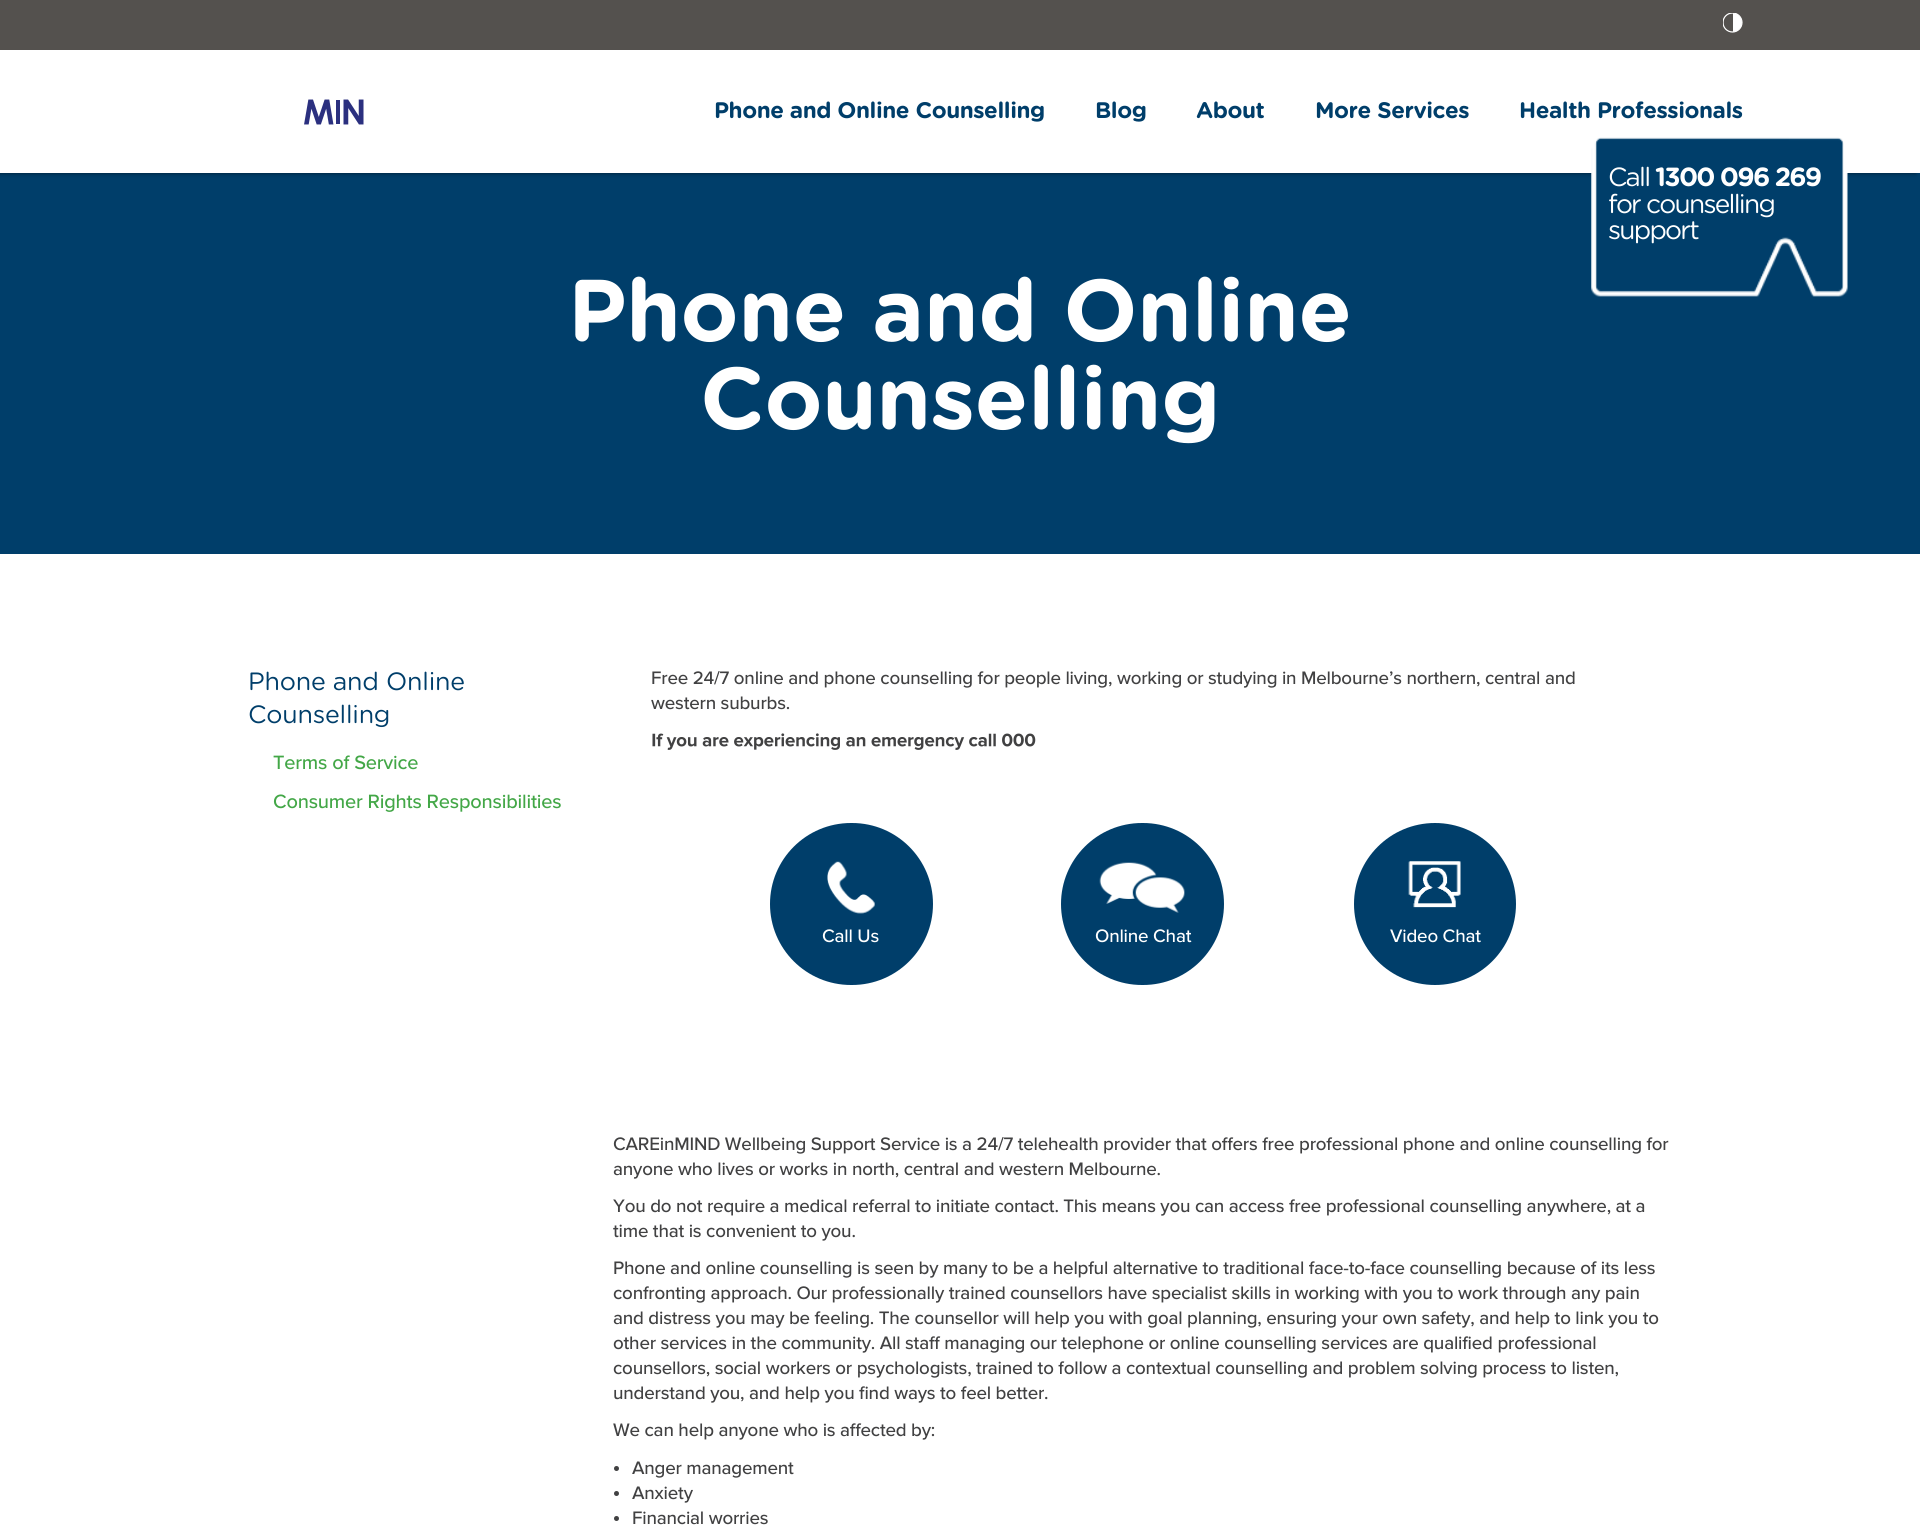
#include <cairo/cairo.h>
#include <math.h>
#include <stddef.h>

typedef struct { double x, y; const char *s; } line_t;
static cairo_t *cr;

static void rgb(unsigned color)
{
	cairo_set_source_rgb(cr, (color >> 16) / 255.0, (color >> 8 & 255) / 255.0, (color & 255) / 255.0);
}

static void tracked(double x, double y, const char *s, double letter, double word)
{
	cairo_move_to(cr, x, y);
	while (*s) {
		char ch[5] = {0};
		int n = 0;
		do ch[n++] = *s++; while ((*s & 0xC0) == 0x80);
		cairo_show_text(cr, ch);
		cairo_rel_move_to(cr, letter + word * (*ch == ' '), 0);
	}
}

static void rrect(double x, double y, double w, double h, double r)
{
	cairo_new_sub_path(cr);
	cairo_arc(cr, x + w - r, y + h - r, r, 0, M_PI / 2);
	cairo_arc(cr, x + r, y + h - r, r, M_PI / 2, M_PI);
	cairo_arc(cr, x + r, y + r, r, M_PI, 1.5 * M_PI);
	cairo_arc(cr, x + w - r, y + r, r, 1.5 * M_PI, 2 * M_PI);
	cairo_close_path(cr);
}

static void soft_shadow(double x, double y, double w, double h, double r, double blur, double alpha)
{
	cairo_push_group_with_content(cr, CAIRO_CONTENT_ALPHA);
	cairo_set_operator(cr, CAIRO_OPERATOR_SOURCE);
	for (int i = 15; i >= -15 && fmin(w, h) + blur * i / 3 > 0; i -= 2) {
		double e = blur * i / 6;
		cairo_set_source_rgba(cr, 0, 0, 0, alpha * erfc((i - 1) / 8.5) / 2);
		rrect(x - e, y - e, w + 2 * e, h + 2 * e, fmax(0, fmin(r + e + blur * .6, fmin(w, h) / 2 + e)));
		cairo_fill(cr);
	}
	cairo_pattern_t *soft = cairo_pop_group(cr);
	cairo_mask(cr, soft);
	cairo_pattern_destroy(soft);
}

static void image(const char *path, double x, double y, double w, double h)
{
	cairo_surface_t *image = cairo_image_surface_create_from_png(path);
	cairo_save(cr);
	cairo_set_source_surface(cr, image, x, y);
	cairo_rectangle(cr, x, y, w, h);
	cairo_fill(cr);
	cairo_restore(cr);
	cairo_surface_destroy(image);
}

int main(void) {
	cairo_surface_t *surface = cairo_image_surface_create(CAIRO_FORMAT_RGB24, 1920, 1526);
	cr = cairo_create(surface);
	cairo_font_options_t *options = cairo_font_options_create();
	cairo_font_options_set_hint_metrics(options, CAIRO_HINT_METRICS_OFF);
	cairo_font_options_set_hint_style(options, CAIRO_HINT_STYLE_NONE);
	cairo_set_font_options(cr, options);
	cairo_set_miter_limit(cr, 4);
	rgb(0xffffff);
	cairo_paint(cr);
	rgb(0x003e6a);
	cairo_rectangle(cr, 0, 173, 1920, 381);
	cairo_fill(cr);
	rgb(0x000000);
	soft_shadow(-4, 1, 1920, 173, 0, 2, 0.4);
	rgb(0x54514e);
	cairo_rectangle(cr, 0, 0, 1920, 50);
	cairo_fill(cr);
	rgb(0xffffff);
	cairo_arc(cr, 1732.5, 22.5, 9.5, 0, 2 * M_PI);
	cairo_fill(cr);
	rgb(0x54514e);
	cairo_new_path(cr);
	cairo_move_to(cr, 1732.5, 13);
	cairo_line_to(cr, 1733, 13);
	cairo_line_to(cr, 1733, 32.5);
	cairo_curve_to(cr, 1720, 32.5, 1720, 13, 1732.5, 13);
	cairo_close_path(cr);
	cairo_fill(cr);
	cairo_save(cr);
	cairo_rectangle(cr, 1723, 13, 20, 20);
	cairo_clip(cr);
	cairo_arc(cr, 1732.5, 22.5, 9.5, 0, 2 * M_PI);
	rgb(0xffffff);
	cairo_set_line_width(cr, 1.2);
	cairo_stroke(cr);
	cairo_restore(cr);
	rgb(0xffffff);
	cairo_rectangle(cr, 0, 50, 1920, 123);
	cairo_fill(cr);
	image("img/1.png", 304, 99, 60, 26);
	image("img/2.png", 1591, 137, 257, 160);
	image("img/3.png", 652, 733, 384, 17);
	rgb(0x003e6a);
	rrect(770, 823, 163, 162, 81);
	cairo_fill(cr);
	image("img/4.png", 827, 861, 48, 53);
	rrect(1061, 823, 163, 162, 81);
	cairo_fill(cr);
	image("img/5.png", 1099, 862, 86, 51);
	cairo_arc(cr, 1435, 904, 81, 0, 2 * M_PI);
	cairo_fill(cr);
	image("img/6.png", 1408, 861, 53, 47);
	rgb(0x414142);
	cairo_arc(cr, 616.5, 1468.5, 2.5, 0, 2 * M_PI);
	cairo_fill(cr);
	cairo_arc(cr, 616.5, 1493.5, 2.5, 0, 2 * M_PI);
	cairo_fill(cr);
	cairo_arc(cr, 616.5, 1518.5, 2.5, 0, 2 * M_PI);
	cairo_fill(cr);
	cairo_select_font_face(cr, "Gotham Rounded", CAIRO_FONT_SLANT_NORMAL, CAIRO_FONT_WEIGHT_BOLD);
	cairo_set_font_size(cr, 22.5);
	rgb(0x003e6a);
	{
		static const line_t items[] = {
			{714, 118, "Phone and Online Counselling"},
			{1095, 118, "Blog"},
			{1196, 118, "About"},
			{1315, 118, "More Services"},
			{1519, 118, "Health Professionals"},
		};
		for (size_t i = 0; i < sizeof items / sizeof *items; i++) {
			tracked(items[i].x, items[i].y, items[i].s, -0.45, 0);
		}
	}
	cairo_select_font_face(cr, "Gotham Rounded", CAIRO_FONT_SLANT_NORMAL, CAIRO_FONT_WEIGHT_NORMAL);
	cairo_set_font_size(cr, 26.25);
	rgb(0xffffff);
	tracked(1608, 186, "Call", -1.75, 0);
	cairo_select_font_face(cr, "Gotham Rounded", CAIRO_FONT_SLANT_NORMAL, CAIRO_FONT_WEIGHT_BOLD);
	tracked(1655, 186, "1300 096 269", -1.75, 0);
	cairo_select_font_face(cr, "Gotham Rounded", CAIRO_FONT_SLANT_NORMAL, CAIRO_FONT_WEIGHT_NORMAL);
	tracked(1608, 213, "for counselling", -1.75, 0);
	tracked(1608, 239, "support", -1.75, 0);
	cairo_select_font_face(cr, "Gotham Rounded", CAIRO_FONT_SLANT_NORMAL, CAIRO_FONT_WEIGHT_BOLD);
	cairo_set_font_size(cr, 87.5);
	tracked(568, 341, "Phone and Online", -0.19, 0);
	tracked(700, 429, "Counselling", -0.19, 0);
	cairo_select_font_face(cr, "Gotham Rounded", CAIRO_FONT_SLANT_NORMAL, CAIRO_FONT_WEIGHT_NORMAL);
	cairo_set_font_size(cr, 25);
	rgb(0x003e6a);
	tracked(248, 690, "Phone and Online", -0.19, 0);
	tracked(248, 723, "Counselling", -0.19, 0);
	cairo_select_font_face(cr, "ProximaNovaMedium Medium", CAIRO_FONT_SLANT_NORMAL, CAIRO_FONT_WEIGHT_NORMAL);
	cairo_set_font_size(cr, 20);
	rgb(0x43a747);
	tracked(273, 769, "Terms of Service", -0.19, 0);
	tracked(273, 808, "Consumer Rights Responsibilities", -0.19, 0);
	cairo_set_font_size(cr, 18.75);
	rgb(0x414142);
	tracked(651, 684, "Free 24/7 online and phone counselling for people living, working or studying in Melbourne’s northern, central and", -0.19, 0);
	tracked(651, 709, "western suburbs.", -0.19, 0);
	rgb(0xffffff);
	{
		static const line_t items[] = {
			{822, 942, "Call Us"},
			{1095, 942, "Online Chat"},
			{1390, 942, "Video Chat"},
		};
		for (size_t i = 0; i < sizeof items / sizeof *items; i++) {
			tracked(items[i].x, items[i].y, items[i].s, -0.19, 0);
		}
	}
	rgb(0x414142);
	{
		static const line_t items[] = {
			{613, 1150, "CAREinMIND Wellbeing Support Service is a 24/7 telehealth provider that offers free professional phone and online counselling for"},
			{613, 1175, "anyone who lives or works in north, central and western Melbourne."},
			{613, 1212, "You do not require a medical referral to initiate contact. This means you can access free professional counselling anywhere, at a"},
			{613, 1237, "time that is convenient to you."},
			{613, 1274, "Phone and online counselling is seen by many to be a helpful alternative to traditional face-to-face counselling because of its less"},
			{613, 1299, "confronting approach. Our professionally trained counsellors have specialist skills in working with you to work through any pain"},
			{613, 1324, "and distress you may be feeling. The counsellor will help you with goal planning, ensuring your own safety, and help to link you to"},
			{613, 1349, "other services in the community. All staff managing our telephone or online counselling services are qualified professional"},
			{613, 1374, "counsellors, social workers or psychologists, trained to follow a contextual counselling and problem solving process to listen,"},
			{613, 1399, "understand you, and help you find ways to feel better."},
			{613, 1436, "We can help anyone who is affected by:"},
			{632, 1474, "Anger management"},
			{632, 1499, "Anxiety"},
			{632, 1524, "Financial worries"},
		};
		for (size_t i = 0; i < sizeof items / sizeof *items; i++) {
			tracked(items[i].x, items[i].y, items[i].s, -0.19, 0);
		}
	}
	cairo_surface_write_to_png(surface, "page.png");
	cairo_font_options_destroy(options);
	cairo_destroy(cr);
	cairo_surface_destroy(surface);
	return 0;
}
